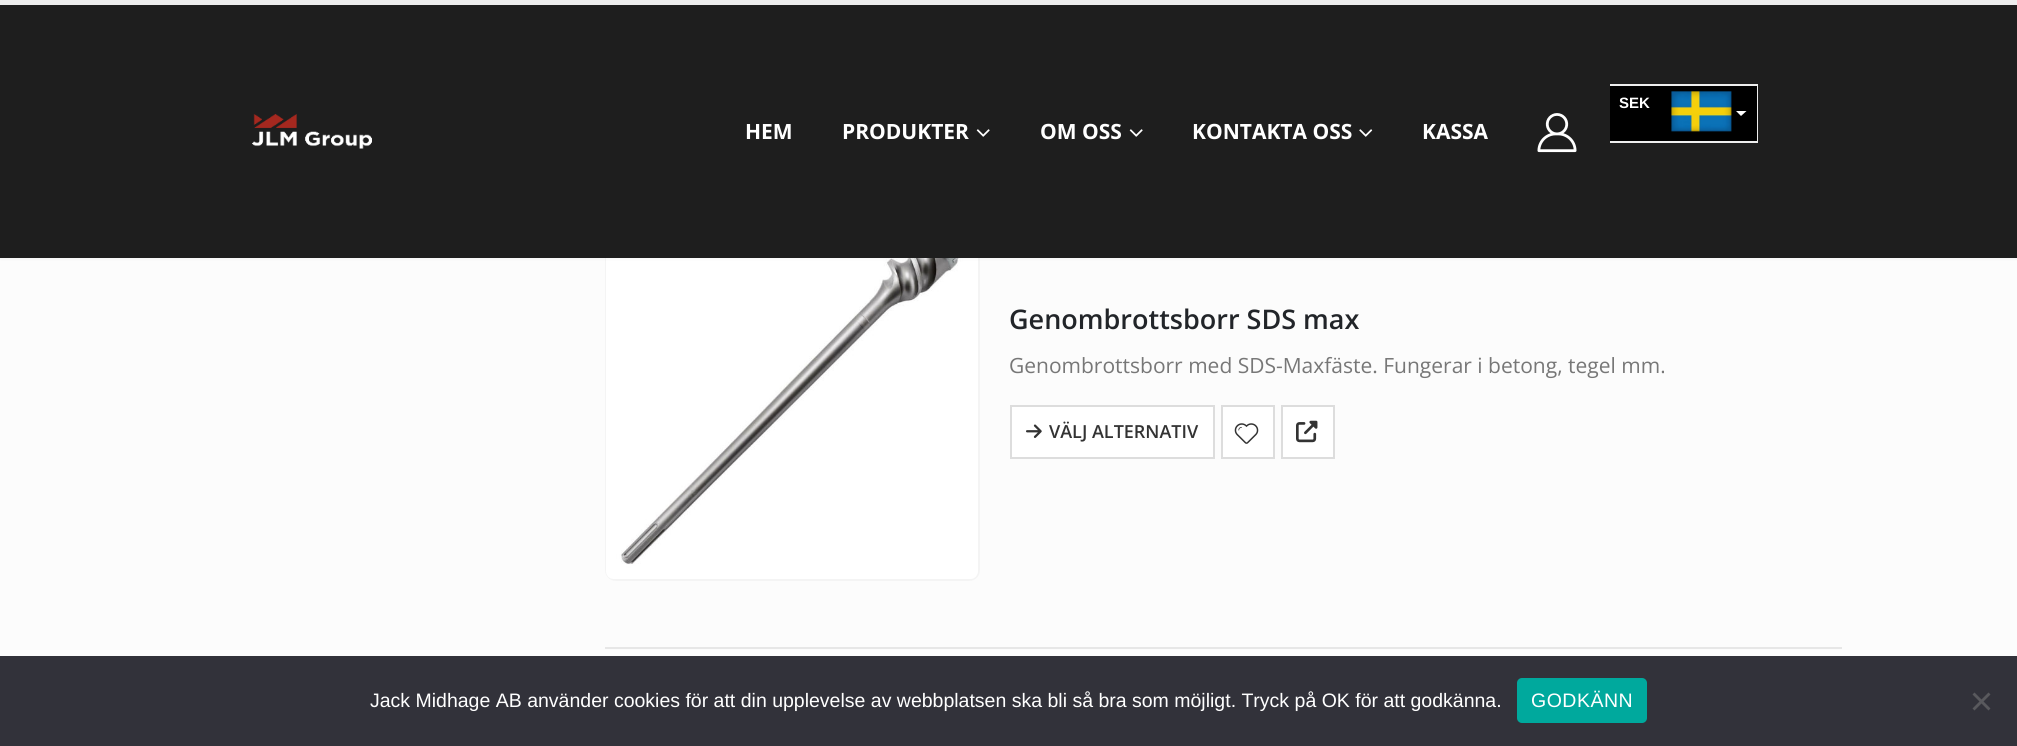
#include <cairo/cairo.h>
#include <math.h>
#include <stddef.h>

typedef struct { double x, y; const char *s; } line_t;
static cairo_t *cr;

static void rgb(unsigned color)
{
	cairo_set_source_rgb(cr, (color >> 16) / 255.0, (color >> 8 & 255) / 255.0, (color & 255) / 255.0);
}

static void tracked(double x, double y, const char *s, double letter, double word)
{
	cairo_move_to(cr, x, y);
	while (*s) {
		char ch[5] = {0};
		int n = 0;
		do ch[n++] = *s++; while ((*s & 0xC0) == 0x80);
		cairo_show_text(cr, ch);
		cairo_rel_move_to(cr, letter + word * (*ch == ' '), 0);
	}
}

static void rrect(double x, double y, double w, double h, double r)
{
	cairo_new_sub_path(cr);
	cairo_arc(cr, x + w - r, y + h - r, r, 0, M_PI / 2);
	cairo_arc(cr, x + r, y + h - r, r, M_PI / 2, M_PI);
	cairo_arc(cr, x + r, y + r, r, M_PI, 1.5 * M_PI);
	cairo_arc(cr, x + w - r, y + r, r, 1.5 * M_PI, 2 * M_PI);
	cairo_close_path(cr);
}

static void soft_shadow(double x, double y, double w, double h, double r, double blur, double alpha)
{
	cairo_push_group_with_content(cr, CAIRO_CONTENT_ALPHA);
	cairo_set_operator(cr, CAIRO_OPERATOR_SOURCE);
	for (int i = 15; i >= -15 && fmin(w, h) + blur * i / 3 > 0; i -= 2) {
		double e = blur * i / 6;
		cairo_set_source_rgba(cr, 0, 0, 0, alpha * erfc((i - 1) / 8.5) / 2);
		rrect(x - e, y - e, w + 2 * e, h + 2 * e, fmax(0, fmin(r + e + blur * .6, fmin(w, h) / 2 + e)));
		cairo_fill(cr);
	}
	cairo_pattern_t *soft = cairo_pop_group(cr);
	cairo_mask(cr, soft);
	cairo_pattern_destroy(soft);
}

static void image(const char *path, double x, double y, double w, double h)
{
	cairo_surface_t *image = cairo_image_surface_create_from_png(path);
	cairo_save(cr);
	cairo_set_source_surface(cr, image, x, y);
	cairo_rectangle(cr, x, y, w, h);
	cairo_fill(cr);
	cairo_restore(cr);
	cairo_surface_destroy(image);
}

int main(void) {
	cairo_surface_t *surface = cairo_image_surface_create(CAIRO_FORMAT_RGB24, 2017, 746);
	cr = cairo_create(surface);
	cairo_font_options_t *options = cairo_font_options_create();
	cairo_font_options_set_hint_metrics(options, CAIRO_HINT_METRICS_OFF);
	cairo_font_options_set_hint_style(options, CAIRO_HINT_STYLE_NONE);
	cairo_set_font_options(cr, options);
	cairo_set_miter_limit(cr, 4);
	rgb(0xfcfcfc);
	cairo_paint(cr);
	rrect(606, 207, 373, 373, 10);
	rgb(0xf4f4f4);
	cairo_stroke(cr);
	image("img/6.png", 606, 258, 372, 321);
	rgb(0x000000);
	soft_shadow(0, 0, 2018, 258, 0, 2, 0.06);
	rgb(0x1e1e1e);
	cairo_rectangle(cr, 0, 5, 2017, 253);
	cairo_fill(cr);
	rgb(0xededed);
	cairo_rectangle(cr, 0, 0, 2017, 5);
	cairo_fill(cr);
	image("img/1.png", 252, 114, 120, 35);
	rgb(0xeeeeee);
	cairo_rectangle(cr, 1610, 84, 148, 59);
	cairo_fill(cr);
	rgb(0x000000);
	cairo_rectangle(cr, 1610, 86, 147, 55);
	cairo_fill(cr);
	image("img/2.png", 1671, 91, 61, 41);
	rgb(0xffffff);
	cairo_new_path(cr);
	cairo_move_to(cr, 1736, 111);
	cairo_line_to(cr, 1746.5, 111);
	cairo_line_to(cr, 1741, 116);
	cairo_close_path(cr);
	cairo_fill(cr);
	image("img/3.png", 976, 129, 14, 8);
	image("img/3.png", 1129, 129, 14, 8);
	image("img/4.png", 1359, 129, 14, 8);
	image("img/5.png", 1537, 113, 40, 40);
	cairo_rectangle(cr, 1011, 406, 203, 52);
	cairo_fill_preserve(cr);
	rgb(0xdddddd);
	cairo_stroke(cr);
	image("img/7.png", 1026, 424, 16, 14);
	rgb(0xffffff);
	cairo_rectangle(cr, 1222, 406, 52, 52);
	cairo_fill_preserve(cr);
	rgb(0xdddddd);
	cairo_stroke(cr);
	image("img/8.png", 1234, 423, 25, 21);
	rgb(0xffffff);
	cairo_rectangle(cr, 1282, 406, 52, 52);
	cairo_fill_preserve(cr);
	rgb(0xdddddd);
	cairo_stroke(cr);
	image("img/9.png", 1296, 420, 22, 23);
	rgb(0xe7e7e7);
	cairo_rectangle(cr, 605, 647, 1237, 2);
	cairo_fill(cr);
	rgb(0x32323a);
	cairo_rectangle(cr, 0, 656, 2017, 90);
	cairo_fill(cr);
	rgb(0x00a99d);
	rrect(1517, 678, 130, 45, 5);
	cairo_fill(cr);
	rgb(0x59595d);
	cairo_new_path(cr);
	cairo_move_to(cr, 1988.5, 692.5);
	cairo_line_to(cr, 1990.5, 694.5);
	cairo_line_to(cr, 1974.5, 710.5);
	cairo_line_to(cr, 1972.5, 708.5);
	cairo_close_path(cr);
	cairo_fill(cr);
	cairo_new_path(cr);
	cairo_move_to(cr, 1972.5, 694.5);
	cairo_line_to(cr, 1974.5, 692.5);
	cairo_line_to(cr, 1990.5, 708.5);
	cairo_line_to(cr, 1988.5, 710.5);
	cairo_close_path(cr);
	cairo_fill(cr);
	cairo_select_font_face(cr, "Liberation Sans", CAIRO_FONT_SLANT_NORMAL, CAIRO_FONT_WEIGHT_BOLD);
	cairo_set_font_size(cr, 15);
	rgb(0xffffff);
	cairo_move_to(cr, 1619, 108);
	cairo_show_text(cr, "SEK");
	cairo_select_font_face(cr, "Open Sans", CAIRO_FONT_SLANT_NORMAL, CAIRO_FONT_WEIGHT_BOLD);
	cairo_set_font_size(cr, 21);
	{
		static const line_t items[] = {
			{745, 139, "HEM"},
			{842, 139, "PRODUKTER"},
			{1040, 139, "OM OSS"},
			{1192, 139, "KONTAKTA OSS"},
			{1422, 139, "KASSA"},
		};
		for (size_t i = 0; i < sizeof items / sizeof *items; i++) {
			cairo_move_to(cr, items[i].x, items[i].y);
			cairo_show_text(cr, items[i].s);
		}
	}
	cairo_select_font_face(cr, "Open Sans SemiBold", CAIRO_FONT_SLANT_NORMAL, CAIRO_FONT_WEIGHT_NORMAL);
	cairo_set_font_size(cr, 27);
	rgb(0x222529);
	cairo_move_to(cr, 1009, 329);
	cairo_show_text(cr, "Genombrottsborr SDS max");
	cairo_select_font_face(cr, "Open Sans", CAIRO_FONT_SLANT_NORMAL, CAIRO_FONT_WEIGHT_NORMAL);
	cairo_set_font_size(cr, 21);
	rgb(0x777777);
	cairo_move_to(cr, 1009, 373);
	cairo_show_text(cr, "Genombrottsborr med SDS-Maxfäste. Fungerar i betong, tegel mm.");
	cairo_select_font_face(cr, "Open Sans SemiBold", CAIRO_FONT_SLANT_NORMAL, CAIRO_FONT_WEIGHT_NORMAL);
	cairo_set_font_size(cr, 18);
	rgb(0x333333);
	cairo_move_to(cr, 1049, 438);
	cairo_show_text(cr, "VÄLJ ALTERNATIV");
	cairo_select_font_face(cr, "Liberation Sans", CAIRO_FONT_SLANT_NORMAL, CAIRO_FONT_WEIGHT_NORMAL);
	cairo_set_font_size(cr, 19.5);
	rgb(0xffffff);
	cairo_move_to(cr, 370, 707);
	cairo_show_text(cr, "Jack Midhage AB använder cookies för att din upplevelse av webbplatsen ska bli så bra som möjligt. Tryck på OK för att godkänna.");
	tracked(1531, 707, "GODKÄNN", 0.5, 0);
	cairo_surface_write_to_png(surface, "page.png");
	cairo_font_options_destroy(options);
	cairo_destroy(cr);
	cairo_surface_destroy(surface);
	return 0;
}
